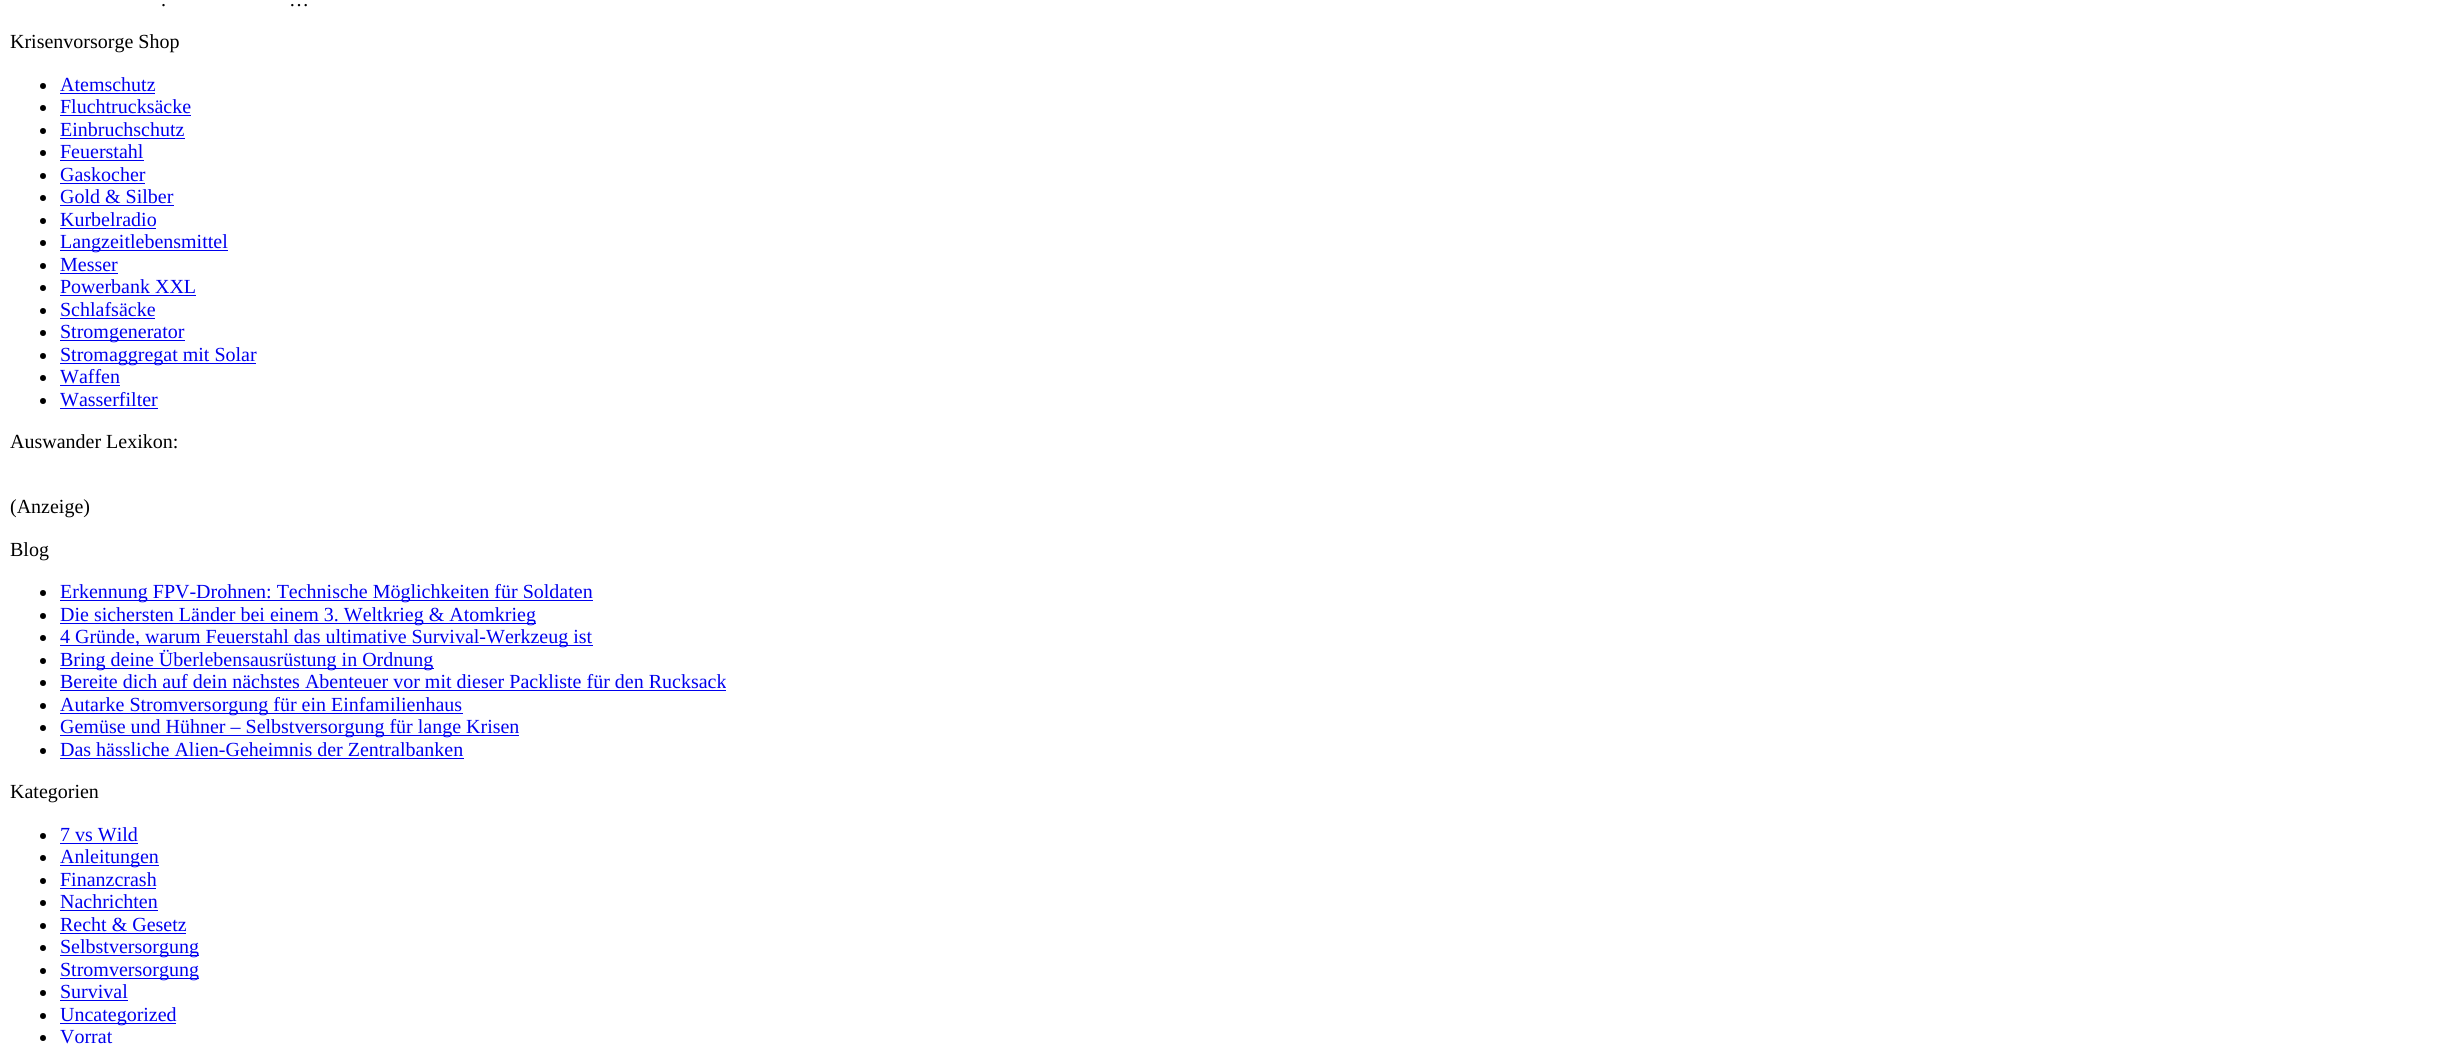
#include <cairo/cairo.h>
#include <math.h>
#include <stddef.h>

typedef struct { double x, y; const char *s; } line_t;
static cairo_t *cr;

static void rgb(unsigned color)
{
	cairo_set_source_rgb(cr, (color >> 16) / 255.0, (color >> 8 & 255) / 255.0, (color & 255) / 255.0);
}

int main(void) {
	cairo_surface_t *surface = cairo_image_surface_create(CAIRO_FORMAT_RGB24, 2437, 1045);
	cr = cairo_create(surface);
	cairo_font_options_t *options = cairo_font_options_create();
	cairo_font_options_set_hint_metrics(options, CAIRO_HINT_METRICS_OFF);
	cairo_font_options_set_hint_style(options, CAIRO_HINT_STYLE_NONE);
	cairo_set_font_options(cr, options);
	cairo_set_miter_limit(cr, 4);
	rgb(0xffffff);
	cairo_paint(cr);
	rgb(0x000000);
	cairo_arc(cr, 43, 86, 3, 0, 2 * M_PI);
	cairo_fill(cr);
	rgb(0x0000ee);
	cairo_rectangle(cr, 60, 93, 95, 1);
	cairo_fill(cr);
	rgb(0x000000);
	cairo_arc(cr, 43, 108, 3, 0, 2 * M_PI);
	cairo_fill(cr);
	rgb(0x0000ee);
	cairo_rectangle(cr, 60, 115, 131, 1);
	cairo_fill(cr);
	rgb(0x000000);
	cairo_arc(cr, 43, 131, 3, 0, 2 * M_PI);
	cairo_fill(cr);
	rgb(0x0000ee);
	cairo_rectangle(cr, 60, 138, 125, 1);
	cairo_fill(cr);
	rgb(0x000000);
	cairo_arc(cr, 43, 153, 3, 0, 2 * M_PI);
	cairo_fill(cr);
	rgb(0x0000ee);
	cairo_rectangle(cr, 60, 160, 84, 1);
	cairo_fill(cr);
	rgb(0x000000);
	cairo_arc(cr, 43, 176, 3, 0, 2 * M_PI);
	cairo_fill(cr);
	rgb(0x0000ee);
	cairo_rectangle(cr, 60, 183, 85, 1);
	cairo_fill(cr);
	rgb(0x000000);
	cairo_arc(cr, 43, 198, 3, 0, 2 * M_PI);
	cairo_fill(cr);
	rgb(0x0000ee);
	cairo_rectangle(cr, 60, 205, 114, 1);
	cairo_fill(cr);
	rgb(0x000000);
	cairo_arc(cr, 43, 221, 3, 0, 2 * M_PI);
	cairo_fill(cr);
	rgb(0x0000ee);
	cairo_rectangle(cr, 60, 228, 96, 1);
	cairo_fill(cr);
	rgb(0x000000);
	cairo_arc(cr, 43, 243, 3, 0, 2 * M_PI);
	cairo_fill(cr);
	rgb(0x0000ee);
	cairo_rectangle(cr, 60, 250, 168, 1);
	cairo_fill(cr);
	rgb(0x000000);
	cairo_arc(cr, 43, 266, 3, 0, 2 * M_PI);
	cairo_fill(cr);
	rgb(0x0000ee);
	cairo_rectangle(cr, 60, 273, 58, 1);
	cairo_fill(cr);
	rgb(0x000000);
	cairo_arc(cr, 43, 288, 3, 0, 2 * M_PI);
	cairo_fill(cr);
	rgb(0x0000ee);
	cairo_rectangle(cr, 60, 295, 136, 1);
	cairo_fill(cr);
	rgb(0x000000);
	cairo_arc(cr, 43, 311, 3, 0, 2 * M_PI);
	cairo_fill(cr);
	rgb(0x0000ee);
	cairo_rectangle(cr, 60, 318, 95, 1);
	cairo_fill(cr);
	rgb(0x000000);
	cairo_arc(cr, 43, 333, 3, 0, 2 * M_PI);
	cairo_fill(cr);
	rgb(0x0000ee);
	cairo_rectangle(cr, 60, 340, 125, 1);
	cairo_fill(cr);
	rgb(0x000000);
	cairo_arc(cr, 43, 356, 3, 0, 2 * M_PI);
	cairo_fill(cr);
	rgb(0x0000ee);
	cairo_rectangle(cr, 60, 363, 196, 1);
	cairo_fill(cr);
	rgb(0x000000);
	cairo_arc(cr, 43, 378, 3, 0, 2 * M_PI);
	cairo_fill(cr);
	rgb(0x0000ee);
	cairo_rectangle(cr, 60, 385, 60, 1);
	cairo_fill(cr);
	rgb(0x000000);
	cairo_arc(cr, 43, 401, 3, 0, 2 * M_PI);
	cairo_fill(cr);
	rgb(0x0000ee);
	cairo_rectangle(cr, 60, 408, 98, 1);
	cairo_fill(cr);
	rgb(0x000000);
	cairo_arc(cr, 43, 593, 3, 0, 2 * M_PI);
	cairo_fill(cr);
	rgb(0x0000ee);
	cairo_rectangle(cr, 60, 600, 533, 1);
	cairo_fill(cr);
	rgb(0x000000);
	cairo_arc(cr, 43, 616, 3, 0, 2 * M_PI);
	cairo_fill(cr);
	rgb(0x0000ee);
	cairo_rectangle(cr, 60, 623, 476, 1);
	cairo_fill(cr);
	rgb(0x000000);
	cairo_arc(cr, 43, 638, 3, 0, 2 * M_PI);
	cairo_fill(cr);
	rgb(0x0000ee);
	cairo_rectangle(cr, 60, 645, 533, 1);
	cairo_fill(cr);
	rgb(0x000000);
	cairo_arc(cr, 43, 661, 3, 0, 2 * M_PI);
	cairo_fill(cr);
	rgb(0x0000ee);
	cairo_rectangle(cr, 60, 668, 374, 1);
	cairo_fill(cr);
	rgb(0x000000);
	cairo_arc(cr, 43, 683, 3, 0, 2 * M_PI);
	cairo_fill(cr);
	rgb(0x0000ee);
	cairo_rectangle(cr, 60, 690, 666, 1);
	cairo_fill(cr);
	rgb(0x000000);
	cairo_arc(cr, 43, 706, 3, 0, 2 * M_PI);
	cairo_fill(cr);
	rgb(0x0000ee);
	cairo_rectangle(cr, 60, 713, 403, 1);
	cairo_fill(cr);
	rgb(0x000000);
	cairo_arc(cr, 43, 728, 3, 0, 2 * M_PI);
	cairo_fill(cr);
	rgb(0x0000ee);
	cairo_rectangle(cr, 60, 735, 459, 1);
	cairo_fill(cr);
	rgb(0x000000);
	cairo_arc(cr, 43, 751, 3, 0, 2 * M_PI);
	cairo_fill(cr);
	rgb(0x0000ee);
	cairo_rectangle(cr, 60, 758, 404, 1);
	cairo_fill(cr);
	rgb(0x000000);
	cairo_arc(cr, 43, 836, 3, 0, 2 * M_PI);
	cairo_fill(cr);
	rgb(0x0000ee);
	cairo_rectangle(cr, 60, 843, 78, 1);
	cairo_fill(cr);
	rgb(0x000000);
	cairo_arc(cr, 43, 858, 3, 0, 2 * M_PI);
	cairo_fill(cr);
	rgb(0x0000ee);
	cairo_rectangle(cr, 60, 865, 99, 1);
	cairo_fill(cr);
	rgb(0x000000);
	cairo_arc(cr, 43, 881, 3, 0, 2 * M_PI);
	cairo_fill(cr);
	rgb(0x0000ee);
	cairo_rectangle(cr, 60, 888, 96, 1);
	cairo_fill(cr);
	rgb(0x000000);
	cairo_arc(cr, 43, 903, 3, 0, 2 * M_PI);
	cairo_fill(cr);
	rgb(0x0000ee);
	cairo_rectangle(cr, 60, 910, 98, 1);
	cairo_fill(cr);
	rgb(0x000000);
	cairo_arc(cr, 43, 926, 3, 0, 2 * M_PI);
	cairo_fill(cr);
	rgb(0x0000ee);
	cairo_rectangle(cr, 60, 933, 126, 1);
	cairo_fill(cr);
	rgb(0x000000);
	cairo_arc(cr, 43, 948, 3, 0, 2 * M_PI);
	cairo_fill(cr);
	rgb(0x0000ee);
	cairo_rectangle(cr, 60, 955, 139, 1);
	cairo_fill(cr);
	rgb(0x000000);
	cairo_arc(cr, 43, 971, 3, 0, 2 * M_PI);
	cairo_fill(cr);
	rgb(0x0000ee);
	cairo_rectangle(cr, 60, 978, 139, 1);
	cairo_fill(cr);
	rgb(0x000000);
	cairo_arc(cr, 43, 993, 3, 0, 2 * M_PI);
	cairo_fill(cr);
	rgb(0x0000ee);
	cairo_rectangle(cr, 60, 1000, 68, 1);
	cairo_fill(cr);
	rgb(0x000000);
	cairo_arc(cr, 43, 1016, 3, 0, 2 * M_PI);
	cairo_fill(cr);
	rgb(0x0000ee);
	cairo_rectangle(cr, 60, 1023, 116, 1);
	cairo_fill(cr);
	rgb(0x000000);
	cairo_arc(cr, 43, 1038, 3, 0, 2 * M_PI);
	cairo_fill(cr);
	cairo_select_font_face(cr, "Liberation Serif", CAIRO_FONT_SLANT_NORMAL, CAIRO_FONT_WEIGHT_NORMAL);
	cairo_set_font_size(cr, 20);
	{
		static const line_t items[] = {
			{161, 6, "."},
			{289, 6, "…"},
			{10, 48, "Krisenvorsorge Shop"},
		};
		for (size_t i = 0; i < sizeof items / sizeof *items; i++) {
			cairo_move_to(cr, items[i].x, items[i].y);
			cairo_show_text(cr, items[i].s);
		}
	}
	rgb(0x0000ee);
	{
		static const line_t items[] = {
			{60, 91, "Atemschutz"},
			{60, 113, "Fluchtrucksäcke"},
			{60, 136, "Einbruchschutz"},
			{60, 158, "Feuerstahl"},
			{60, 181, "Gaskocher"},
			{60, 203, "Gold & Silber"},
			{60, 226, "Kurbelradio"},
			{60, 248, "Langzeitlebensmittel"},
			{60, 271, "Messer"},
			{60, 293, "Powerbank XXL"},
			{60, 316, "Schlafsäcke"},
			{60, 338, "Stromgenerator"},
			{60, 361, "Stromaggregat mit Solar"},
			{60, 383, "Waffen"},
			{60, 406, "Wasserfilter"},
		};
		for (size_t i = 0; i < sizeof items / sizeof *items; i++) {
			cairo_move_to(cr, items[i].x, items[i].y);
			cairo_show_text(cr, items[i].s);
		}
	}
	rgb(0x000000);
	{
		static const line_t items[] = {
			{10, 448, "Auswander Lexikon:"},
			{10, 513, "(Anzeige)"},
			{10, 556, "Blog"},
		};
		for (size_t i = 0; i < sizeof items / sizeof *items; i++) {
			cairo_move_to(cr, items[i].x, items[i].y);
			cairo_show_text(cr, items[i].s);
		}
	}
	rgb(0x0000ee);
	{
		static const line_t items[] = {
			{60, 598, "Erkennung FPV-Drohnen: Technische Möglichkeiten für Soldaten"},
			{60, 621, "Die sichersten Länder bei einem 3. Weltkrieg & Atomkrieg"},
			{60, 643, "4 Gründe, warum Feuerstahl das ultimative Survival-Werkzeug ist"},
			{60, 666, "Bring deine Überlebensausrüstung in Ordnung"},
			{60, 688, "Bereite dich auf dein nächstes Abenteuer vor mit dieser Packliste für den Rucksack"},
			{60, 711, "Autarke Stromversorgung für ein Einfamilienhaus"},
			{60, 733, "Gemüse und Hühner – Selbstversorgung für lange Krisen"},
			{60, 756, "Das hässliche Alien-Geheimnis der Zentralbanken"},
		};
		for (size_t i = 0; i < sizeof items / sizeof *items; i++) {
			cairo_move_to(cr, items[i].x, items[i].y);
			cairo_show_text(cr, items[i].s);
		}
	}
	rgb(0x000000);
	cairo_move_to(cr, 10, 798);
	cairo_show_text(cr, "Kategorien");
	rgb(0x0000ee);
	{
		static const line_t items[] = {
			{60, 841, "7 vs Wild"},
			{60, 863, "Anleitungen"},
			{60, 886, "Finanzcrash"},
			{60, 908, "Nachrichten"},
			{60, 931, "Recht & Gesetz"},
			{60, 953, "Selbstversorgung"},
			{60, 976, "Stromversorgung"},
			{60, 998, "Survival"},
			{60, 1021, "Uncategorized"},
			{60, 1043, "Vorrat"},
		};
		for (size_t i = 0; i < sizeof items / sizeof *items; i++) {
			cairo_move_to(cr, items[i].x, items[i].y);
			cairo_show_text(cr, items[i].s);
		}
	}
	cairo_surface_write_to_png(surface, "page.png");
	cairo_font_options_destroy(options);
	cairo_destroy(cr);
	cairo_surface_destroy(surface);
	return 0;
}
